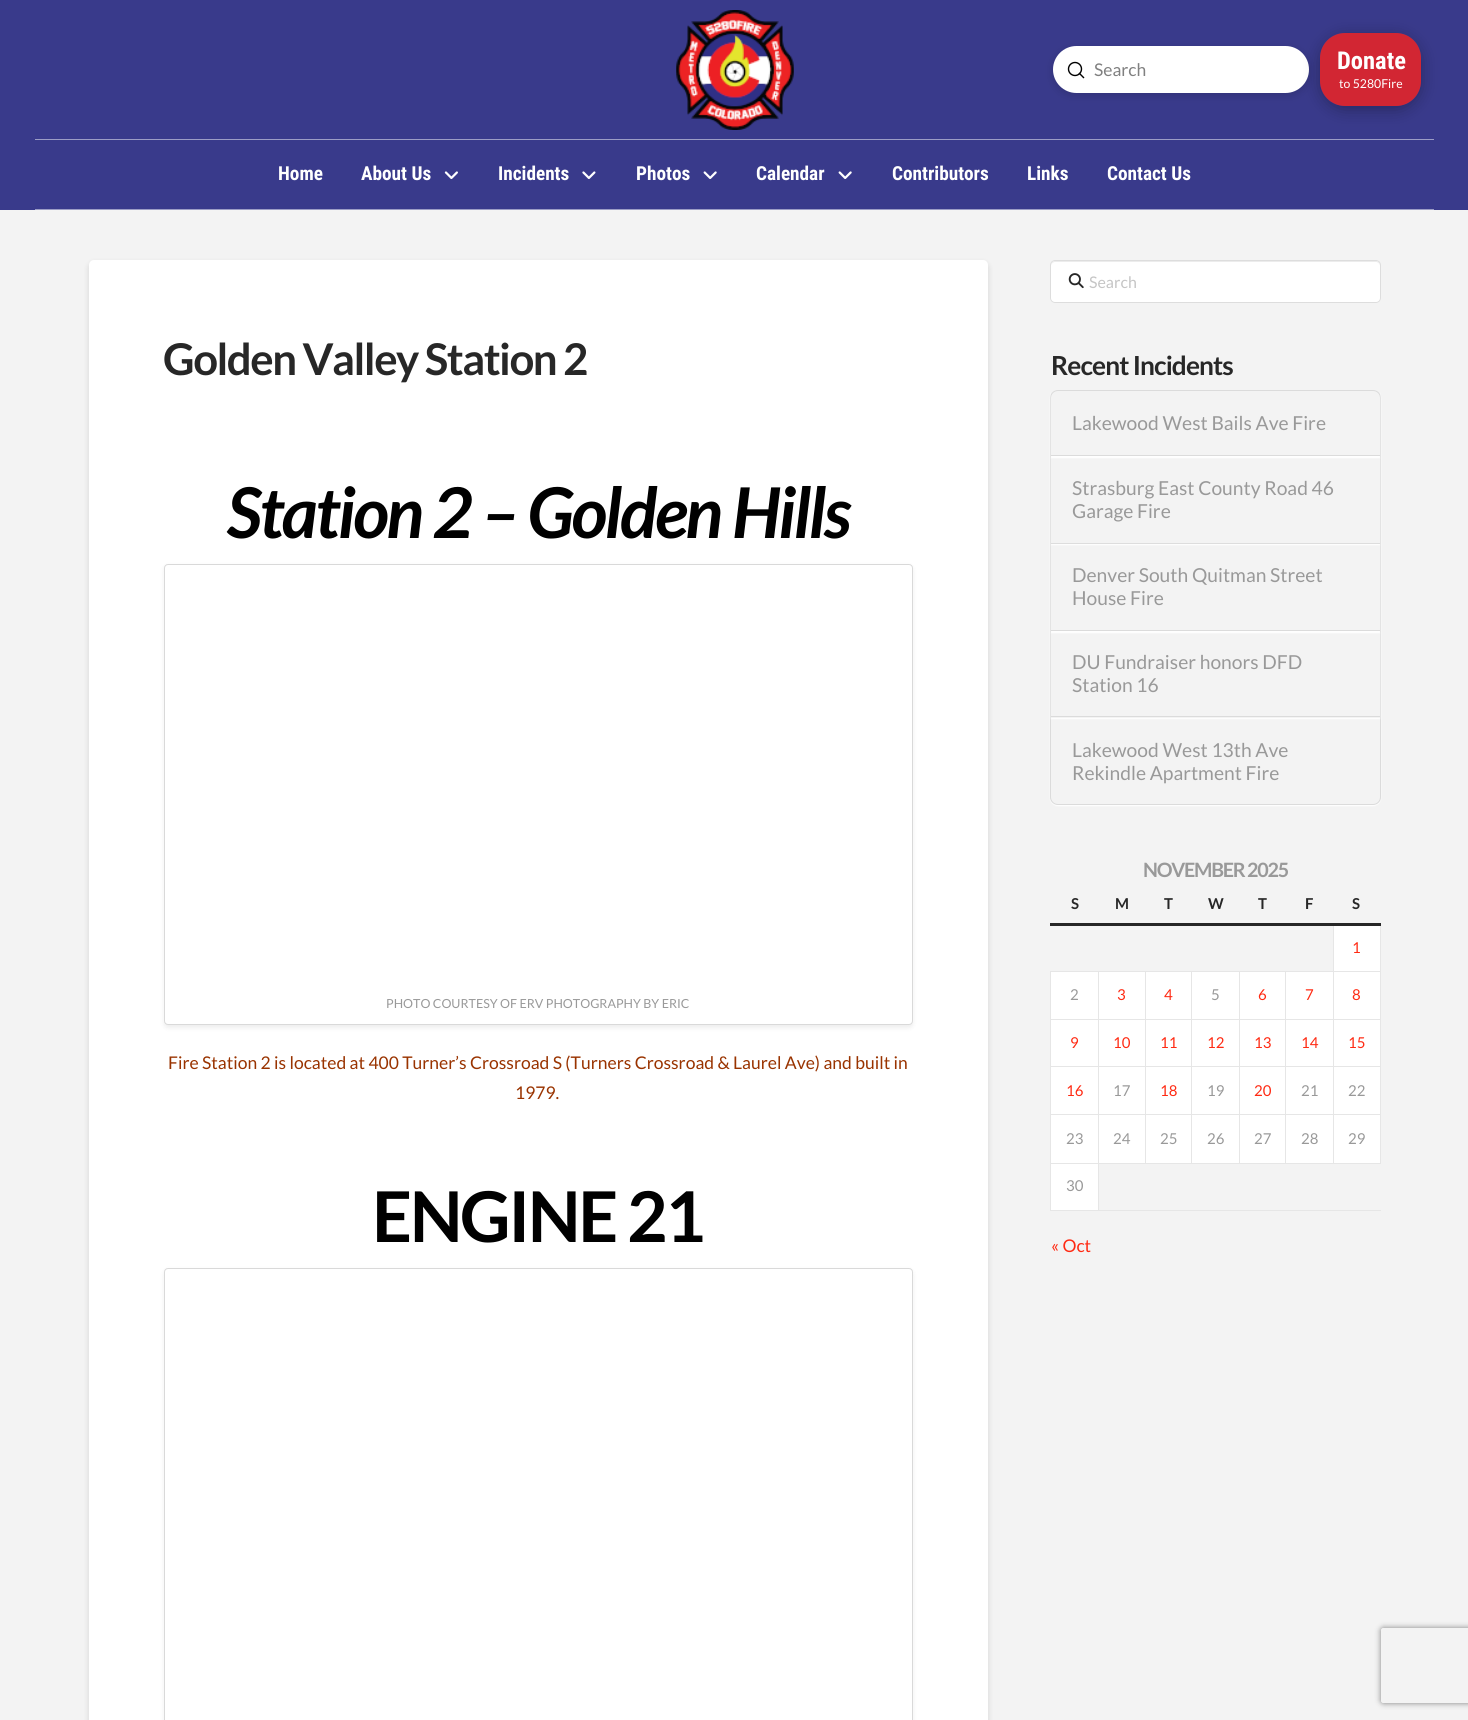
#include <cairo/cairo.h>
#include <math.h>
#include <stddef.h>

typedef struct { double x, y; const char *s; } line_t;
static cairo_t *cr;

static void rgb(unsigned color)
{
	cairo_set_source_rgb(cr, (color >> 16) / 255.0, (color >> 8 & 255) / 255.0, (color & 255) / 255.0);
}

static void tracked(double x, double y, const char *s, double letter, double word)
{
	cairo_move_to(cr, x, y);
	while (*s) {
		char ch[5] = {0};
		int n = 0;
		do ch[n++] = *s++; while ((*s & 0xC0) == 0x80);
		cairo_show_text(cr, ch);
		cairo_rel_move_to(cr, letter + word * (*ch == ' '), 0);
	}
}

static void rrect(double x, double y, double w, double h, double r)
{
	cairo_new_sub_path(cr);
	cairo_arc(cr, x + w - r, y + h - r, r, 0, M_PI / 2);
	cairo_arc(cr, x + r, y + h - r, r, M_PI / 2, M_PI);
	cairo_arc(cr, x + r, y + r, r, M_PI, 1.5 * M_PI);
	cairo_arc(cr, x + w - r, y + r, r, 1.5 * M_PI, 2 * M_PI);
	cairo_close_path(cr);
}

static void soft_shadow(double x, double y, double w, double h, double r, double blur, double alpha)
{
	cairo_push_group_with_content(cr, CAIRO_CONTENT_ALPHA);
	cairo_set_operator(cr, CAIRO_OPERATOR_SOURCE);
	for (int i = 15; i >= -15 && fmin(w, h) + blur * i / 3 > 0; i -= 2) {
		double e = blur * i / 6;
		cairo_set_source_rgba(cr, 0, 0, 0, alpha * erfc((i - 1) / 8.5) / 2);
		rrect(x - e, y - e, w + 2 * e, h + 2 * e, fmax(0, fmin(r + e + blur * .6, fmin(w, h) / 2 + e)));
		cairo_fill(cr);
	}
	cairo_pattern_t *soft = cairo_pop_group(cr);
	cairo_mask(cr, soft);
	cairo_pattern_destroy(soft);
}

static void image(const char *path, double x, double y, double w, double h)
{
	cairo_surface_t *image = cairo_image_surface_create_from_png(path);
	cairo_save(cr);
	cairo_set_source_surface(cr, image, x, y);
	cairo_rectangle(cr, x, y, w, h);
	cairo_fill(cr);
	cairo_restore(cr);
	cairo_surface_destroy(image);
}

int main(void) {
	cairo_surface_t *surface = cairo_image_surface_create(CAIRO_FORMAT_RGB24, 1468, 1720);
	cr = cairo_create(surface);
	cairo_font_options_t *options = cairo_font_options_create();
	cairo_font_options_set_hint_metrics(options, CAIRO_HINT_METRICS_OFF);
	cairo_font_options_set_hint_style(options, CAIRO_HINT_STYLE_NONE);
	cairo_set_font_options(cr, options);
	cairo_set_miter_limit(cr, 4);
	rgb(0xf3f3f3);
	cairo_paint(cr);
	rgb(0x393a8b);
	cairo_rectangle(cr, 0, 0, 1468, 210);
	cairo_fill(cr);
	image("img/1.png", 676, 10, 118, 120);
	rgb(0x000000);
	soft_shadow(1053, 49, 256, 46, 23, 4.5, 0.15);
	rgb(0xffffff);
	rrect(1053, 46, 256, 47, 23.5);
	cairo_fill(cr);
	cairo_arc(cr, 1075, 69, 6.5, 0, 2 * M_PI);
	rgb(0x000000);
	cairo_set_line_width(cr, 1.4);
	cairo_stroke(cr);
	cairo_new_path(cr);
	cairo_move_to(cr, 1083.5, 77.5);
	cairo_line_to(cr, 1079.5, 73.5);
	cairo_set_line_cap(cr, CAIRO_LINE_CAP_SQUARE);
	cairo_stroke(cr);
	cairo_save(cr);
	cairo_set_fill_rule(cr, CAIRO_FILL_RULE_EVEN_ODD);
	cairo_new_path(cr);
	cairo_move_to(cr, 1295, 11);
	cairo_line_to(cr, 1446, 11);
	cairo_line_to(cr, 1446, 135);
	cairo_line_to(cr, 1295, 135);
	cairo_close_path(cr);
	cairo_move_to(cr, 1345, 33);
	cairo_line_to(cr, 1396, 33);
	cairo_curve_to(cr, 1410, 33, 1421, 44, 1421, 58);
	cairo_line_to(cr, 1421, 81);
	cairo_curve_to(cr, 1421, 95, 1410, 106, 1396, 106);
	cairo_line_to(cr, 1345, 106);
	cairo_curve_to(cr, 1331, 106, 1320, 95, 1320, 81);
	cairo_line_to(cr, 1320, 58);
	cairo_curve_to(cr, 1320, 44, 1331, 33, 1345, 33);
	cairo_close_path(cr);
	cairo_clip(cr);
	rgb(0x000000);
	soft_shadow(1320, 36, 101, 74, 25, 8, 0.3);
	cairo_restore(cr);
	cairo_set_source_rgba(cr, 0.929, 0.137, 0.141, 0.85);
	rrect(1320, 33, 101, 73, 25);
	cairo_fill(cr);
	rgb(0x9c9dc5);
	cairo_rectangle(cr, 35, 139, 1399, 1);
	cairo_fill(cr);
	cairo_rectangle(cr, 35, 209, 1399, 1);
	cairo_fill(cr);
	image("img/2.png", 444, 171, 14, 8);
	image("img/3.png", 582, 171, 14, 8);
	image("img/4.png", 703, 171, 14, 8);
	image("img/4.png", 838, 171, 14, 8);
	rgb(0x000000);
	soft_shadow(89, 263, 899, 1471, 5, 3, 0.13);
	rgb(0xffffff);
	rrect(89, 260, 899, 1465, 5);
	cairo_fill(cr);
	rgb(0x000000);
	soft_shadow(164, 566, 749, 462, 4, 2.5, 0.07);
	rgb(0xffffff);
	rrect(164.5, 564.5, 748, 460, 3.5);
	cairo_fill_preserve(cr);
	rgb(0xd9d9d9);
	cairo_set_line_width(cr, 1);
	cairo_set_line_cap(cr, CAIRO_LINE_CAP_BUTT);
	cairo_stroke(cr);
	rgb(0x000000);
	soft_shadow(164, 1270, 749, 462, 4, 2.5, 0.07);
	rgb(0xffffff);
	rrect(164.5, 1268.5, 748, 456, 3.5);
	cairo_fill_preserve(cr);
	rgb(0xd9d9d9);
	cairo_stroke(cr);
	rgb(0xffffff);
	rrect(1050, 260, 331, 43, 5);
	cairo_fill(cr);
	rgb(0xececec);
	cairo_new_path(cr);
	cairo_move_to(cr, 1055, 262);
	cairo_line_to(cr, 1376, 262);
	cairo_curve_to(cr, 1378, 262, 1380, 264, 1380, 266);
	cairo_line_to(cr, 1380, 265);
	cairo_curve_to(cr, 1380, 263, 1378, 261, 1376, 261);
	cairo_line_to(cr, 1055, 261);
	cairo_curve_to(cr, 1053, 261, 1051, 263, 1051, 265);
	cairo_line_to(cr, 1051, 266);
	cairo_curve_to(cr, 1051, 264, 1053, 262, 1055, 262);
	cairo_close_path(cr);
	cairo_fill(cr);
	rrect(1050.5, 260.5, 330, 42, 4.5);
	rgb(0xdddddd);
	cairo_stroke(cr);
	image("img/5.png", 1068, 273, 16, 16);
	cairo_save(cr);
	cairo_set_fill_rule(cr, CAIRO_FILL_RULE_EVEN_ODD);
	cairo_new_path(cr);
	cairo_move_to(cr, 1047, 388);
	cairo_line_to(cr, 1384, 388);
	cairo_line_to(cr, 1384, 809);
	cairo_line_to(cr, 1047, 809);
	cairo_close_path(cr);
	cairo_move_to(cr, 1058, 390);
	cairo_line_to(cr, 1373, 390);
	cairo_curve_to(cr, 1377.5, 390, 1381, 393.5, 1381, 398);
	cairo_line_to(cr, 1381, 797);
	cairo_curve_to(cr, 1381, 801.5, 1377.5, 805, 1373, 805);
	cairo_line_to(cr, 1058, 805);
	cairo_curve_to(cr, 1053.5, 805, 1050, 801.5, 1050, 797);
	cairo_line_to(cr, 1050, 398);
	cairo_curve_to(cr, 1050, 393.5, 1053.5, 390, 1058, 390);
	cairo_close_path(cr);
	cairo_clip(cr);
	rgb(0xffffff);
	soft_shadow(1050, 391, 331, 415, 8, 0.5, 0.95);
	cairo_restore(cr);
	rrect(1050.5, 390.5, 330, 414, 7.5);
	cairo_set_source_rgba(cr, 0, 0, 0, 0.1);
	cairo_stroke(cr);
	cairo_save(cr);
	cairo_set_fill_rule(cr, CAIRO_FILL_RULE_EVEN_ODD);
	cairo_new_path(cr);
	cairo_move_to(cr, 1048, 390);
	cairo_line_to(cr, 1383, 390);
	cairo_line_to(cr, 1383, 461);
	cairo_line_to(cr, 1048, 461);
	cairo_close_path(cr);
	cairo_move_to(cr, 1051, 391);
	cairo_line_to(cr, 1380, 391);
	cairo_line_to(cr, 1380, 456);
	cairo_line_to(cr, 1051, 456);
	cairo_close_path(cr);
	cairo_clip(cr);
	rgb(0xffffff);
	soft_shadow(1051, 393, 329, 65, 0, 0.5, 0.95);
	cairo_restore(cr);
	cairo_rectangle(cr, 1051, 455, 329, 1);
	cairo_fill(cr);
	cairo_save(cr);
	cairo_set_fill_rule(cr, CAIRO_FILL_RULE_EVEN_ODD);
	cairo_new_path(cr);
	cairo_move_to(cr, 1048, 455);
	cairo_line_to(cr, 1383, 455);
	cairo_line_to(cr, 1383, 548);
	cairo_line_to(cr, 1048, 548);
	cairo_close_path(cr);
	cairo_move_to(cr, 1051, 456);
	cairo_line_to(cr, 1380, 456);
	cairo_line_to(cr, 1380, 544);
	cairo_line_to(cr, 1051, 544);
	cairo_close_path(cr);
	cairo_clip(cr);
	rgb(0xffffff);
	soft_shadow(1051, 458, 329, 87, 0, 0.5, 0.95);
	cairo_restore(cr);
	rgb(0xdddddd);
	cairo_rectangle(cr, 1051, 543, 329, 1);
	cairo_fill(cr);
	cairo_save(cr);
	cairo_set_fill_rule(cr, CAIRO_FILL_RULE_EVEN_ODD);
	cairo_new_path(cr);
	cairo_move_to(cr, 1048, 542);
	cairo_line_to(cr, 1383, 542);
	cairo_line_to(cr, 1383, 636);
	cairo_line_to(cr, 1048, 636);
	cairo_close_path(cr);
	cairo_move_to(cr, 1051, 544);
	cairo_line_to(cr, 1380, 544);
	cairo_line_to(cr, 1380, 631);
	cairo_line_to(cr, 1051, 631);
	cairo_close_path(cr);
	cairo_clip(cr);
	rgb(0xffffff);
	soft_shadow(1051, 545, 329, 88, 0, 0.5, 0.95);
	cairo_restore(cr);
	cairo_set_source_rgba(cr, 0, 0, 0, 0.1);
	cairo_rectangle(cr, 1051, 630, 329, 1);
	cairo_fill(cr);
	cairo_save(cr);
	cairo_set_fill_rule(cr, CAIRO_FILL_RULE_EVEN_ODD);
	cairo_new_path(cr);
	cairo_move_to(cr, 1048, 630);
	cairo_line_to(cr, 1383, 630);
	cairo_line_to(cr, 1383, 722);
	cairo_line_to(cr, 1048, 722);
	cairo_close_path(cr);
	cairo_move_to(cr, 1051, 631);
	cairo_line_to(cr, 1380, 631);
	cairo_line_to(cr, 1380, 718);
	cairo_line_to(cr, 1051, 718);
	cairo_close_path(cr);
	cairo_clip(cr);
	rgb(0xffffff);
	soft_shadow(1051, 633, 329, 86, 0, 0.5, 0.95);
	cairo_restore(cr);
	cairo_rectangle(cr, 1051, 716, 329, 1);
	cairo_fill(cr);
	rgb(0xe6e6e6);
	cairo_rectangle(cr, 1333, 971, 48, 1);
	cairo_fill(cr);
	cairo_rectangle(cr, 1333, 1019, 48, 1);
	cairo_fill(cr);
	rgb(0xffffff);
	cairo_rectangle(cr, 1286, 1020, 47, 94);
	cairo_fill(cr);
	cairo_rectangle(cr, 1334, 1020, 46, 94);
	cairo_fill(cr);
	rgb(0xe6e6e6);
	cairo_rectangle(cr, 1333, 1066, 48, 1);
	cairo_fill(cr);
	cairo_rectangle(cr, 1333, 1114, 48, 1);
	cairo_fill(cr);
	cairo_rectangle(cr, 1098, 1163, 283, 1);
	cairo_fill(cr);
	cairo_rectangle(cr, 1333, 1114, 1, 50);
	cairo_fill(cr);
	cairo_rectangle(cr, 1285, 1114, 49, 1);
	cairo_fill(cr);
	cairo_rectangle(cr, 1333, 1066, 1, 49);
	cairo_fill(cr);
	cairo_rectangle(cr, 1285, 1066, 49, 1);
	cairo_fill(cr);
	cairo_rectangle(cr, 1333, 1019, 1, 49);
	cairo_fill(cr);
	cairo_rectangle(cr, 1285, 1019, 49, 1);
	cairo_fill(cr);
	cairo_rectangle(cr, 1333, 971, 1, 49);
	cairo_fill(cr);
	cairo_rectangle(cr, 1285, 971, 49, 1);
	cairo_fill(cr);
	cairo_rectangle(cr, 1333, 923, 1, 50);
	cairo_fill(cr);
	cairo_rectangle(cr, 1380, 1114, 1, 50);
	cairo_fill(cr);
	cairo_rectangle(cr, 1380, 1066, 1, 49);
	cairo_fill(cr);
	cairo_rectangle(cr, 1380, 1019, 1, 49);
	cairo_fill(cr);
	cairo_rectangle(cr, 1380, 923, 1, 97);
	cairo_fill(cr);
	rgb(0x272727);
	cairo_rectangle(cr, 1050, 923, 331, 3);
	cairo_fill(cr);
	rgb(0xffffff);
	cairo_rectangle(cr, 1334, 926, 46, 45);
	cairo_fill(cr);
	cairo_rectangle(cr, 1051, 972, 47, 47);
	cairo_fill(cr);
	cairo_rectangle(cr, 1240, 1020, 45, 94);
	cairo_fill(cr);
	rgb(0xe6e6e6);
	cairo_rectangle(cr, 1285, 1114, 1, 50);
	cairo_fill(cr);
	cairo_rectangle(cr, 1239, 1114, 47, 1);
	cairo_fill(cr);
	cairo_rectangle(cr, 1285, 1066, 1, 49);
	cairo_fill(cr);
	cairo_rectangle(cr, 1239, 1066, 47, 1);
	cairo_fill(cr);
	cairo_rectangle(cr, 1285, 1019, 1, 49);
	cairo_fill(cr);
	cairo_rectangle(cr, 1239, 1019, 47, 1);
	cairo_fill(cr);
	cairo_rectangle(cr, 1285, 971, 1, 49);
	cairo_fill(cr);
	cairo_rectangle(cr, 1239, 971, 47, 1);
	cairo_fill(cr);
	rgb(0xffffff);
	cairo_rectangle(cr, 1146, 1020, 93, 48);
	cairo_fill(cr);
	rgb(0xe6e6e6);
	cairo_rectangle(cr, 1239, 1114, 1, 50);
	cairo_fill(cr);
	cairo_rectangle(cr, 1191, 1114, 49, 1);
	cairo_fill(cr);
	cairo_rectangle(cr, 1239, 1066, 1, 49);
	cairo_fill(cr);
	cairo_rectangle(cr, 1191, 1066, 49, 1);
	cairo_fill(cr);
	cairo_rectangle(cr, 1239, 1019, 1, 49);
	cairo_fill(cr);
	cairo_rectangle(cr, 1191, 1019, 49, 1);
	cairo_fill(cr);
	cairo_rectangle(cr, 1239, 971, 1, 49);
	cairo_fill(cr);
	cairo_rectangle(cr, 1191, 971, 49, 1);
	cairo_fill(cr);
	rgb(0xffffff);
	cairo_rectangle(cr, 1146, 972, 93, 47);
	cairo_fill(cr);
	cairo_rectangle(cr, 1146, 1068, 93, 46);
	cairo_fill(cr);
	cairo_rectangle(cr, 1146, 1115, 93, 48);
	cairo_fill(cr);
	rgb(0xe6e6e6);
	cairo_rectangle(cr, 1191, 1114, 1, 50);
	cairo_fill(cr);
	cairo_rectangle(cr, 1145, 1114, 48, 1);
	cairo_fill(cr);
	cairo_rectangle(cr, 1191, 1066, 1, 49);
	cairo_fill(cr);
	cairo_rectangle(cr, 1145, 1066, 48, 1);
	cairo_fill(cr);
	cairo_rectangle(cr, 1191, 1019, 1, 49);
	cairo_fill(cr);
	cairo_rectangle(cr, 1145, 1019, 48, 1);
	cairo_fill(cr);
	cairo_rectangle(cr, 1191, 971, 1, 49);
	cairo_fill(cr);
	cairo_rectangle(cr, 1145, 971, 48, 1);
	cairo_fill(cr);
	rgb(0xffffff);
	cairo_rectangle(cr, 1099, 1020, 46, 94);
	cairo_fill(cr);
	rgb(0xe6e6e6);
	cairo_rectangle(cr, 1145, 1114, 1, 50);
	cairo_fill(cr);
	cairo_rectangle(cr, 1098, 1114, 48, 1);
	cairo_fill(cr);
	cairo_rectangle(cr, 1145, 1066, 1, 49);
	cairo_fill(cr);
	cairo_rectangle(cr, 1098, 1066, 48, 1);
	cairo_fill(cr);
	cairo_rectangle(cr, 1145, 1019, 1, 49);
	cairo_fill(cr);
	cairo_rectangle(cr, 1098, 1019, 48, 1);
	cairo_fill(cr);
	cairo_rectangle(cr, 1145, 971, 1, 49);
	cairo_fill(cr);
	cairo_rectangle(cr, 1098, 971, 48, 1);
	cairo_fill(cr);
	rgb(0xffffff);
	cairo_rectangle(cr, 1051, 1020, 47, 94);
	cairo_fill(cr);
	rgb(0xe6e6e6);
	cairo_rectangle(cr, 1098, 1210, 283, 1);
	cairo_fill(cr);
	cairo_rectangle(cr, 1098, 1163, 1, 48);
	cairo_fill(cr);
	cairo_rectangle(cr, 1050, 1163, 49, 1);
	cairo_fill(cr);
	cairo_rectangle(cr, 1098, 1114, 1, 50);
	cairo_fill(cr);
	cairo_rectangle(cr, 1050, 1114, 49, 1);
	cairo_fill(cr);
	cairo_rectangle(cr, 1098, 1066, 1, 49);
	cairo_fill(cr);
	cairo_rectangle(cr, 1050, 1066, 49, 1);
	cairo_fill(cr);
	cairo_rectangle(cr, 1098, 1019, 1, 49);
	cairo_fill(cr);
	cairo_rectangle(cr, 1050, 1019, 49, 1);
	cairo_fill(cr);
	cairo_rectangle(cr, 1098, 971, 1, 49);
	cairo_fill(cr);
	cairo_rectangle(cr, 1050, 971, 49, 1);
	cairo_fill(cr);
	cairo_rectangle(cr, 1050, 1210, 49, 1);
	cairo_fill(cr);
	cairo_rectangle(cr, 1050, 1163, 1, 48);
	cairo_fill(cr);
	cairo_rectangle(cr, 1050, 1114, 1, 50);
	cairo_fill(cr);
	cairo_rectangle(cr, 1050, 1066, 1, 49);
	cairo_fill(cr);
	cairo_rectangle(cr, 1050, 1019, 1, 49);
	cairo_fill(cr);
	cairo_rectangle(cr, 1050, 971, 1, 49);
	cairo_fill(cr);
	rgb(0xffffff);
	cairo_rectangle(cr, 1099, 972, 46, 47);
	cairo_fill(cr);
	cairo_rectangle(cr, 1240, 972, 45, 47);
	cairo_fill(cr);
	cairo_rectangle(cr, 1286, 972, 47, 47);
	cairo_fill(cr);
	cairo_rectangle(cr, 1334, 972, 46, 47);
	cairo_fill(cr);
	cairo_rectangle(cr, 1051, 1115, 47, 48);
	cairo_fill(cr);
	cairo_rectangle(cr, 1099, 1115, 46, 48);
	cairo_fill(cr);
	cairo_rectangle(cr, 1240, 1115, 45, 48);
	cairo_fill(cr);
	cairo_rectangle(cr, 1286, 1115, 47, 48);
	cairo_fill(cr);
	cairo_rectangle(cr, 1334, 1115, 46, 48);
	cairo_fill(cr);
	cairo_rectangle(cr, 1051, 1164, 47, 46);
	cairo_fill(cr);
	cairo_save(cr);
	cairo_set_fill_rule(cr, CAIRO_FILL_RULE_EVEN_ODD);
	cairo_new_path(cr);
	cairo_move_to(cr, 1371, 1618);
	cairo_line_to(cr, 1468, 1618);
	cairo_line_to(cr, 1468, 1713);
	cairo_line_to(cr, 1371, 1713);
	cairo_close_path(cr);
	cairo_move_to(cr, 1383.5, 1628);
	cairo_line_to(cr, 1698.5, 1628);
	cairo_curve_to(cr, 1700, 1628, 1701, 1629, 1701, 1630.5);
	cairo_line_to(cr, 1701, 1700.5);
	cairo_curve_to(cr, 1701, 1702, 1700, 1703, 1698.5, 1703);
	cairo_line_to(cr, 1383.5, 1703);
	cairo_curve_to(cr, 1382, 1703, 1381, 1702, 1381, 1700.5);
	cairo_line_to(cr, 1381, 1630.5);
	cairo_curve_to(cr, 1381, 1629, 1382, 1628, 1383.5, 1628);
	cairo_close_path(cr);
	cairo_clip(cr);
	rgb(0x808080);
	soft_shadow(1381, 1628, 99, 75, 2.5, 3, 1);
	cairo_restore(cr);
	cairo_select_font_face(cr, "Lato", CAIRO_FONT_SLANT_NORMAL, CAIRO_FONT_WEIGHT_NORMAL);
	cairo_set_font_size(cr, 17.5);
	rgb(0x808080);
	cairo_move_to(cr, 1094, 76);
	cairo_show_text(cr, "Search");
	cairo_select_font_face(cr, "Roboto Condensed", CAIRO_FONT_SLANT_NORMAL, CAIRO_FONT_WEIGHT_BOLD);
	cairo_set_font_size(cr, 24.5);
	rgb(0xffffff);
	cairo_move_to(cr, 1337, 69);
	cairo_show_text(cr, "Donate");
	cairo_select_font_face(cr, "Lato", CAIRO_FONT_SLANT_NORMAL, CAIRO_FONT_WEIGHT_NORMAL);
	cairo_set_font_size(cr, 12.25);
	cairo_move_to(cr, 1339, 88);
	cairo_show_text(cr, "to 5280Fire");
	cairo_select_font_face(cr, "Roboto Condensed", CAIRO_FONT_SLANT_NORMAL, CAIRO_FONT_WEIGHT_BOLD);
	cairo_set_font_size(cr, 19.25);
	{
		static const line_t items[] = {
			{278, 180, "Home"},
			{361, 180, "About Us"},
			{498, 180, "Incidents"},
			{636, 180, "Photos"},
			{756, 180, "Calendar"},
			{892, 180, "Contributors"},
			{1027, 180, "Links"},
			{1107, 180, "Contact Us"},
		};
		for (size_t i = 0; i < sizeof items / sizeof *items; i++) {
			cairo_move_to(cr, items[i].x, items[i].y);
			cairo_show_text(cr, items[i].s);
		}
	}
	cairo_select_font_face(cr, "Lato", CAIRO_FONT_SLANT_NORMAL, CAIRO_FONT_WEIGHT_BOLD);
	cairo_set_font_size(cr, 43.75);
	rgb(0x272727);
	tracked(163, 375, "Golden Valley Station 2", -1.5, 0);
	cairo_select_font_face(cr, "Lato", CAIRO_FONT_SLANT_ITALIC, CAIRO_FONT_WEIGHT_BOLD);
	cairo_set_font_size(cr, 70);
	rgb(0x000000);
	tracked(227, 538, "Station 2 – Golden Hills", -2.45, 0);
	cairo_select_font_face(cr, "Lato", CAIRO_FONT_SLANT_NORMAL, CAIRO_FONT_WEIGHT_NORMAL);
	cairo_set_font_size(cr, 12.5);
	rgb(0x999999);
	cairo_move_to(cr, 386, 1008);
	cairo_show_text(cr, "PHOTO COURTESY OF ERV PHOTOGRAPHY BY ERIC");
	cairo_set_font_size(cr, 17.5);
	rgb(0x993300);
	cairo_move_to(cr, 168, 1069);
	cairo_show_text(cr, "Fire Station 2 is located at 400 Turner’s Crossroad S (Turners Crossroad & Laurel Ave) and built in");
	cairo_move_to(cr, 515, 1099);
	cairo_show_text(cr, "1979.");
	cairo_select_font_face(cr, "Lato", CAIRO_FONT_SLANT_NORMAL, CAIRO_FONT_WEIGHT_BOLD);
	cairo_set_font_size(cr, 70);
	rgb(0x000000);
	tracked(372, 1242, "ENGINE 21", -2.45, 0);
	cairo_select_font_face(cr, "Lato", CAIRO_FONT_SLANT_NORMAL, CAIRO_FONT_WEIGHT_NORMAL);
	cairo_set_font_size(cr, 16);
	rgb(0xc5c5c5);
	cairo_move_to(cr, 1089, 288);
	cairo_show_text(cr, "Search");
	cairo_select_font_face(cr, "Lato", CAIRO_FONT_SLANT_NORMAL, CAIRO_FONT_WEIGHT_BOLD);
	cairo_set_font_size(cr, 26.25);
	rgb(0x272727);
	tracked(1051, 375, "Recent Incidents", -0.9, 0);
	cairo_select_font_face(cr, "Lato", CAIRO_FONT_SLANT_NORMAL, CAIRO_FONT_WEIGHT_NORMAL);
	cairo_set_font_size(cr, 19.25);
	rgb(0x999999);
	{
		static const line_t items[] = {
			{1072, 430, "Lakewood West Bails Ave Fire"},
			{1072, 495, "Strasburg East County Road 46"},
			{1072, 518, "Garage Fire"},
			{1072, 582, "Denver South Quitman Street"},
			{1072, 605, "House Fire"},
			{1072, 669, "DU Fundraiser honors DFD"},
			{1072, 692, "Station 16"},
			{1072, 757, "Lakewood West 13th Ave"},
			{1072, 780, "Rekindle Apartment Fire"},
		};
		for (size_t i = 0; i < sizeof items / sizeof *items; i++) {
			cairo_move_to(cr, items[i].x, items[i].y);
			cairo_show_text(cr, items[i].s);
		}
	}
	cairo_select_font_face(cr, "Lato", CAIRO_FONT_SLANT_NORMAL, CAIRO_FONT_WEIGHT_BOLD);
	cairo_set_font_size(cr, 19.75);
	tracked(1143, 877, "NOVEMBER 2025", -1.25, 0);
	cairo_set_font_size(cr, 15);
	rgb(0x272727);
	{
		static const line_t items[] = {
			{1071, 909, "S"},
			{1115, 909, "M"},
			{1164, 909, "T"},
			{1208, 909, "W"},
			{1258, 909, "T"},
			{1305, 909, "F"},
			{1352, 909, "S"},
		};
		for (size_t i = 0; i < sizeof items / sizeof *items; i++) {
			cairo_move_to(cr, items[i].x, items[i].y);
			cairo_show_text(cr, items[i].s);
		}
	}
	cairo_select_font_face(cr, "Lato", CAIRO_FONT_SLANT_NORMAL, CAIRO_FONT_WEIGHT_NORMAL);
	rgb(0xff2a13);
	cairo_move_to(cr, 1352, 953);
	cairo_show_text(cr, "1");
	rgb(0x999999);
	cairo_move_to(cr, 1070, 1000);
	cairo_show_text(cr, "2");
	rgb(0xff2a13);
	cairo_move_to(cr, 1117, 1000);
	cairo_show_text(cr, "3");
	cairo_move_to(cr, 1164, 1000);
	cairo_show_text(cr, "4");
	rgb(0x999999);
	cairo_move_to(cr, 1211, 1000);
	cairo_show_text(cr, "5");
	rgb(0xff2a13);
	{
		static const line_t items[] = {
			{1258, 1000, "6"},
			{1305, 1000, "7"},
			{1352, 1000, "8"},
			{1070, 1048, "9"},
			{1113, 1048, "10"},
			{1160, 1048, "11"},
			{1207, 1048, "12"},
			{1254, 1048, "13"},
			{1301, 1048, "14"},
			{1348, 1048, "15"},
			{1066, 1096, "16"},
		};
		for (size_t i = 0; i < sizeof items / sizeof *items; i++) {
			cairo_move_to(cr, items[i].x, items[i].y);
			cairo_show_text(cr, items[i].s);
		}
	}
	rgb(0x999999);
	cairo_move_to(cr, 1113, 1096);
	cairo_show_text(cr, "17");
	rgb(0xff2a13);
	cairo_move_to(cr, 1160, 1096);
	cairo_show_text(cr, "18");
	rgb(0x999999);
	cairo_move_to(cr, 1207, 1096);
	cairo_show_text(cr, "19");
	rgb(0xff2a13);
	cairo_move_to(cr, 1254, 1096);
	cairo_show_text(cr, "20");
	rgb(0x999999);
	{
		static const line_t items[] = {
			{1301, 1096, "21"},
			{1348, 1096, "22"},
			{1066, 1144, "23"},
			{1113, 1144, "24"},
			{1160, 1144, "25"},
			{1207, 1144, "26"},
			{1254, 1144, "27"},
			{1301, 1144, "28"},
			{1348, 1144, "29"},
			{1066, 1191, "30"},
		};
		for (size_t i = 0; i < sizeof items / sizeof *items; i++) {
			cairo_move_to(cr, items[i].x, items[i].y);
			cairo_show_text(cr, items[i].s);
		}
	}
	cairo_set_font_size(cr, 17.5);
	rgb(0xff2a13);
	cairo_move_to(cr, 1051, 1252);
	cairo_show_text(cr, "« Oct");
	cairo_surface_write_to_png(surface, "page.png");
	cairo_font_options_destroy(options);
	cairo_destroy(cr);
	cairo_surface_destroy(surface);
	return 0;
}
